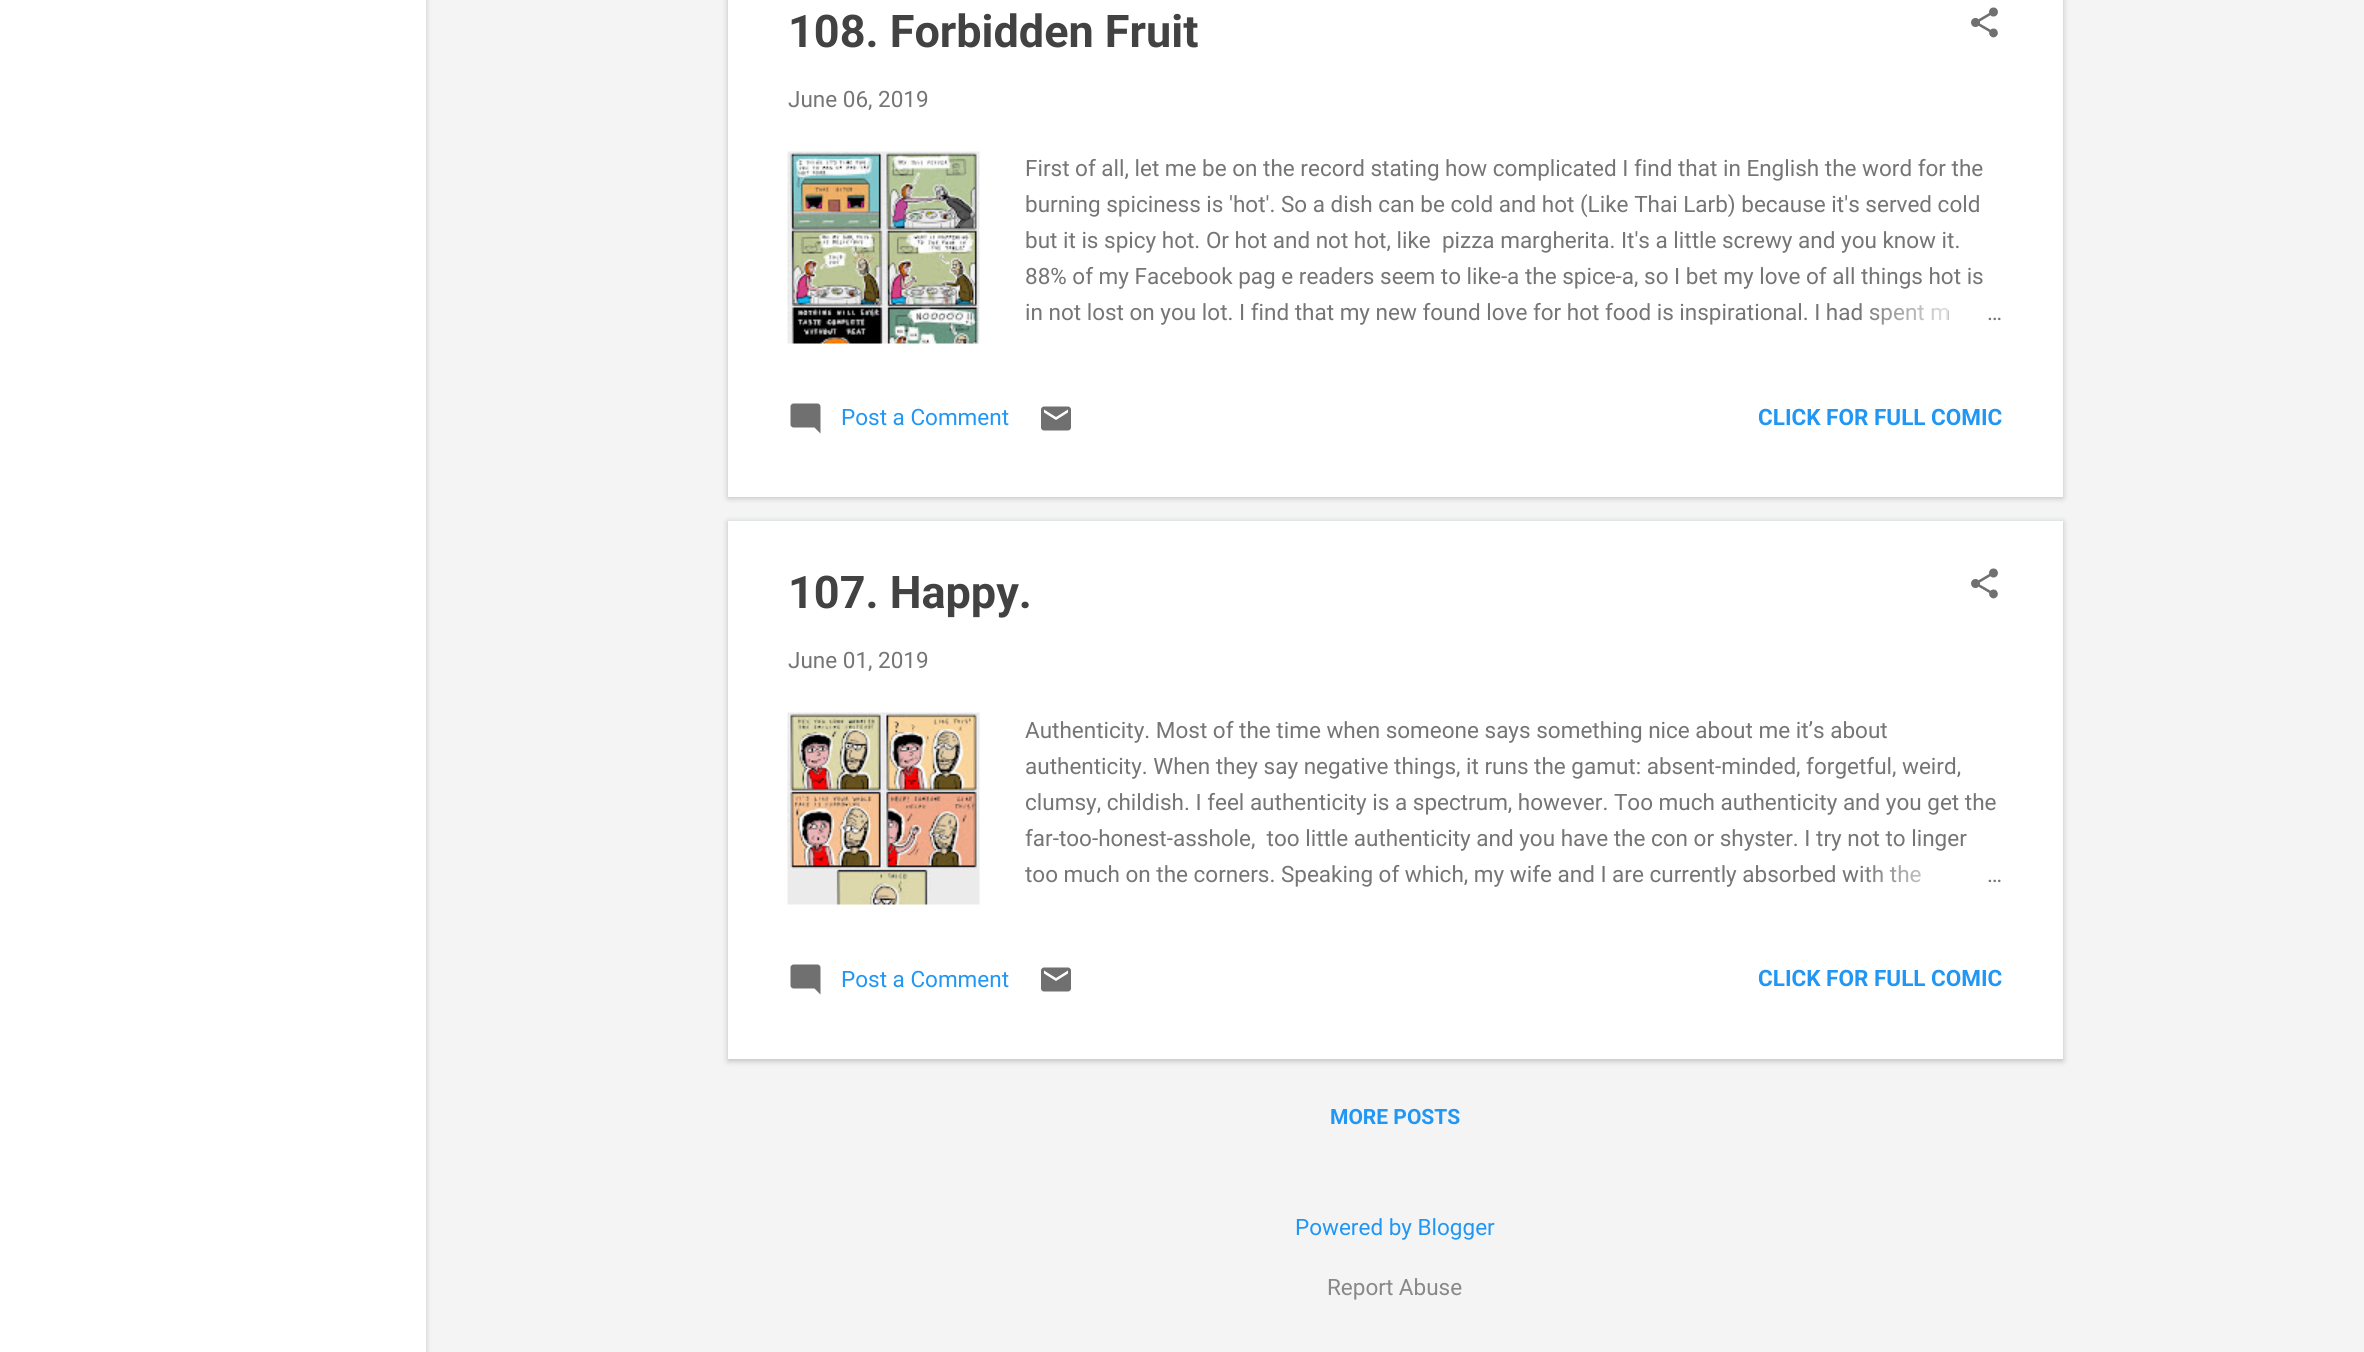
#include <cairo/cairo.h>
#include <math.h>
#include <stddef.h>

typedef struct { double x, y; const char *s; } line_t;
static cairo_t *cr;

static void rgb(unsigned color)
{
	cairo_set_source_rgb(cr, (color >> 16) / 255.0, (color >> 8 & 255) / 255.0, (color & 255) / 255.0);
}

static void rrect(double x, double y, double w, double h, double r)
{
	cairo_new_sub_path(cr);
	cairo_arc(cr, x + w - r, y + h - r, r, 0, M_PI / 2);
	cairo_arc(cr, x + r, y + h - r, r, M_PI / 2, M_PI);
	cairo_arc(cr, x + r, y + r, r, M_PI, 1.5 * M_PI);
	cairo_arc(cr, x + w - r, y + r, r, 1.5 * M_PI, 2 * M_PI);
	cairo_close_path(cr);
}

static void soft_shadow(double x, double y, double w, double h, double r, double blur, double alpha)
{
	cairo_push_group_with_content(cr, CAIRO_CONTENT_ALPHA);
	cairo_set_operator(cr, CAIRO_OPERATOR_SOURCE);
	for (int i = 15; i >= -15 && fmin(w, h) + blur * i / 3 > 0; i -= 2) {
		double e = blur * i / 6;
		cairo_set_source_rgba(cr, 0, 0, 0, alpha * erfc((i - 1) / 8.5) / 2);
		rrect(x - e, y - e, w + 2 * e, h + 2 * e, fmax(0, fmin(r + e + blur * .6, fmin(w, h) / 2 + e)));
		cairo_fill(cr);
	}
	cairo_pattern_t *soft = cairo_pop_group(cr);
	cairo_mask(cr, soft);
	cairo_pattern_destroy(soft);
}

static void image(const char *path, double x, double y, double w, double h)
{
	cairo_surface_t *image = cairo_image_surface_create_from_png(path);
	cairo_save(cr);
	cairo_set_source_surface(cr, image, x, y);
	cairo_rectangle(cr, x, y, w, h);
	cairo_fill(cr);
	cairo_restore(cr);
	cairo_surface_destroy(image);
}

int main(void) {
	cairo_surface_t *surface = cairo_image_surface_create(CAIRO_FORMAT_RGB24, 2364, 1352);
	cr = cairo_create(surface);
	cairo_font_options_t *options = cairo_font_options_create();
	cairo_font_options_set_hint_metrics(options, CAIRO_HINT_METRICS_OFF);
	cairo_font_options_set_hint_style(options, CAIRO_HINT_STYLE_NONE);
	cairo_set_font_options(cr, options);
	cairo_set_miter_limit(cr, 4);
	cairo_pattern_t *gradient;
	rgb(0xf4f4f4);
	cairo_paint(cr);
	rgb(0x000000);
	soft_shadow(2, -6, 426, 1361, 0, 2, 0.1);
	rgb(0xffffff);
	cairo_rectangle(cr, 0, 0, 426, 1352);
	cairo_fill(cr);
	rgb(0x3c4043);
	soft_shadow(728, -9, 1335, 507, 0, 3, 0.3);
	rgb(0xffffff);
	cairo_rectangle(cr, 728, 0, 1335, 497);
	cairo_fill(cr);
	image("img/1.png", 1971, 7, 27, 31);
	image("img/2.png", 787, 151, 193, 193);
	image("img/3.png", 790, 403, 31, 31);
	image("img/4.png", 1041, 406, 30, 25);
	rgb(0x3c4043);
	soft_shadow(728, 522, 1335, 539, 0, 3, 0.3);
	rgb(0xffffff);
	cairo_rectangle(cr, 728, 521, 1335, 538);
	cairo_fill(cr);
	image("img/1.png", 1971, 568, 27, 31);
	image("img/5.png", 787, 712, 193, 193);
	image("img/3.png", 790, 964, 31, 31);
	image("img/4.png", 1041, 967, 30, 25);
	cairo_select_font_face(cr, "Roboto", CAIRO_FONT_SLANT_NORMAL, CAIRO_FONT_WEIGHT_BOLD);
	cairo_set_font_size(cr, 45);
	rgb(0x424242);
	cairo_move_to(cr, 788, 47);
	cairo_show_text(cr, "108. Forbidden Fruit");
	cairo_select_font_face(cr, "Roboto", CAIRO_FONT_SLANT_NORMAL, CAIRO_FONT_WEIGHT_NORMAL);
	cairo_set_font_size(cr, 22.5);
	rgb(0x757575);
	{
		static const line_t items[] = {
			{788, 107, "June 06, 2019"},
			{1025, 176, "First of all, let me be on the record stating how complicated I find that in English the word for the"},
			{1025, 212, "burning spiciness is 'hot'. So a dish can be cold and hot (Like Thai Larb) because it's served cold"},
			{1025, 248, "but it is spicy hot. Or hot and not hot, like  pizza margherita. It's a little screwy and you know it."},
			{1025, 284, "88% of my Facebook pag e readers seem to like-a the spice-a, so I bet my love of all things hot is"},
			{1025, 320, "in not lost on you lot. I find that my new found love for hot food is inspirational. I had spent m"},
		};
		for (size_t i = 0; i < sizeof items / sizeof *items; i++) {
			cairo_move_to(cr, items[i].x, items[i].y);
			cairo_show_text(cr, items[i].s);
		}
	}
	gradient = cairo_pattern_create_linear(2003, 314, 1859, 314);
	cairo_pattern_add_color_stop_rgba(gradient, 0, 1, 1, 1, 1);
	cairo_pattern_add_color_stop_rgba(gradient, 0.2, 1, 1, 1, 1);
	cairo_pattern_add_color_stop_rgba(gradient, 1, 1, 1, 1, 0);
	cairo_set_source(cr, gradient);
	cairo_pattern_destroy(gradient);
	cairo_rectangle(cr, 1869, 305, 79, 20);
	cairo_fill(cr);
	rgb(0x757575);
	cairo_move_to(cr, 1987, 320);
	cairo_show_text(cr, "…");
	rgb(0x2196f3);
	cairo_move_to(cr, 841, 425);
	cairo_show_text(cr, "Post a Comment");
	cairo_select_font_face(cr, "Roboto", CAIRO_FONT_SLANT_NORMAL, CAIRO_FONT_WEIGHT_BOLD);
	cairo_move_to(cr, 1758, 425);
	cairo_show_text(cr, "CLICK FOR FULL COMIC");
	cairo_set_font_size(cr, 45);
	rgb(0x424242);
	cairo_move_to(cr, 788, 608);
	cairo_show_text(cr, "107. Happy.");
	cairo_select_font_face(cr, "Roboto", CAIRO_FONT_SLANT_NORMAL, CAIRO_FONT_WEIGHT_NORMAL);
	cairo_set_font_size(cr, 22.5);
	rgb(0x757575);
	{
		static const line_t items[] = {
			{788, 668, "June 01, 2019"},
			{1025, 738, "Authenticity. Most of the time when someone says something nice about me it’s about"},
			{1025, 774, "authenticity. When they say negative things, it runs the gamut: absent-minded, forgetful, weird,"},
			{1025, 810, "clumsy, childish. I feel authenticity is a spectrum, however. Too much authenticity and you get the"},
			{1025, 846, "far-too-honest-asshole,  too little authenticity and you have the con or shyster. I try not to linger"},
			{1025, 882, "too much on the corners. Speaking of which, my wife and I are currently absorbed with the"},
		};
		for (size_t i = 0; i < sizeof items / sizeof *items; i++) {
			cairo_move_to(cr, items[i].x, items[i].y);
			cairo_show_text(cr, items[i].s);
		}
	}
	gradient = cairo_pattern_create_linear(2003, 875, 1859, 875);
	cairo_pattern_add_color_stop_rgba(gradient, 0, 1, 1, 1, 1);
	cairo_pattern_add_color_stop_rgba(gradient, 0.2, 1, 1, 1, 1);
	cairo_pattern_add_color_stop_rgba(gradient, 1, 1, 1, 1, 0);
	cairo_set_source(cr, gradient);
	cairo_pattern_destroy(gradient);
	cairo_rectangle(cr, 1861, 865, 60, 18);
	cairo_fill(cr);
	rgb(0x757575);
	cairo_move_to(cr, 1987, 882);
	cairo_show_text(cr, "…");
	rgb(0x2196f3);
	cairo_move_to(cr, 841, 987);
	cairo_show_text(cr, "Post a Comment");
	cairo_select_font_face(cr, "Roboto", CAIRO_FONT_SLANT_NORMAL, CAIRO_FONT_WEIGHT_BOLD);
	cairo_move_to(cr, 1758, 986);
	cairo_show_text(cr, "CLICK FOR FULL COMIC");
	cairo_set_font_size(cr, 21);
	cairo_move_to(cr, 1330, 1124);
	cairo_show_text(cr, "MORE POSTS");
	cairo_select_font_face(cr, "Roboto", CAIRO_FONT_SLANT_NORMAL, CAIRO_FONT_WEIGHT_NORMAL);
	cairo_set_font_size(cr, 22.5);
	cairo_move_to(cr, 1295, 1235);
	cairo_show_text(cr, "Powered by Blogger");
	rgb(0x888888);
	cairo_move_to(cr, 1327, 1295);
	cairo_show_text(cr, "Report Abuse");
	cairo_surface_write_to_png(surface, "page.png");
	cairo_font_options_destroy(options);
	cairo_destroy(cr);
	cairo_surface_destroy(surface);
	return 0;
}
